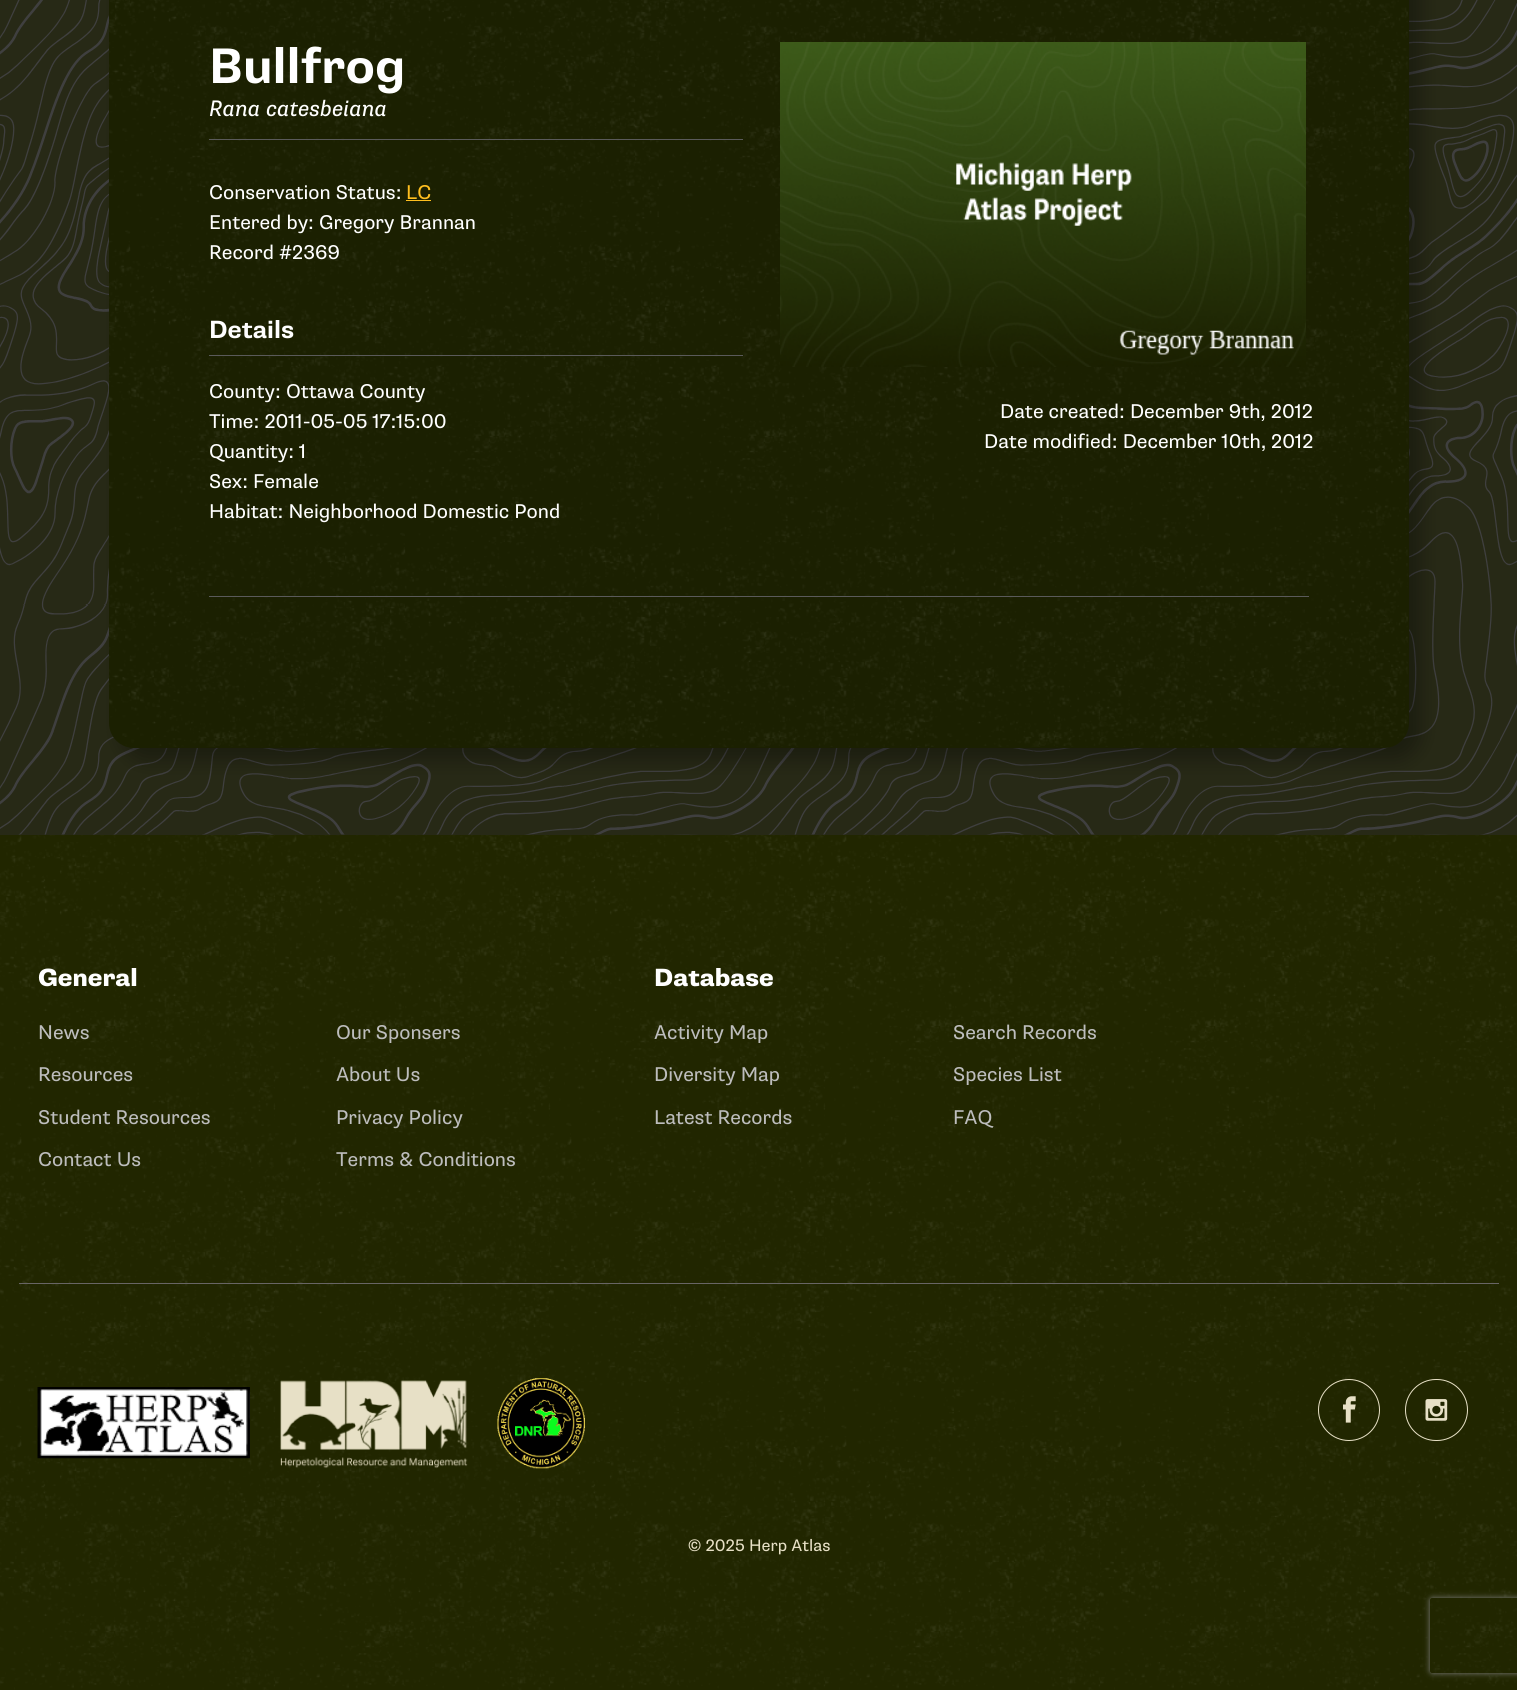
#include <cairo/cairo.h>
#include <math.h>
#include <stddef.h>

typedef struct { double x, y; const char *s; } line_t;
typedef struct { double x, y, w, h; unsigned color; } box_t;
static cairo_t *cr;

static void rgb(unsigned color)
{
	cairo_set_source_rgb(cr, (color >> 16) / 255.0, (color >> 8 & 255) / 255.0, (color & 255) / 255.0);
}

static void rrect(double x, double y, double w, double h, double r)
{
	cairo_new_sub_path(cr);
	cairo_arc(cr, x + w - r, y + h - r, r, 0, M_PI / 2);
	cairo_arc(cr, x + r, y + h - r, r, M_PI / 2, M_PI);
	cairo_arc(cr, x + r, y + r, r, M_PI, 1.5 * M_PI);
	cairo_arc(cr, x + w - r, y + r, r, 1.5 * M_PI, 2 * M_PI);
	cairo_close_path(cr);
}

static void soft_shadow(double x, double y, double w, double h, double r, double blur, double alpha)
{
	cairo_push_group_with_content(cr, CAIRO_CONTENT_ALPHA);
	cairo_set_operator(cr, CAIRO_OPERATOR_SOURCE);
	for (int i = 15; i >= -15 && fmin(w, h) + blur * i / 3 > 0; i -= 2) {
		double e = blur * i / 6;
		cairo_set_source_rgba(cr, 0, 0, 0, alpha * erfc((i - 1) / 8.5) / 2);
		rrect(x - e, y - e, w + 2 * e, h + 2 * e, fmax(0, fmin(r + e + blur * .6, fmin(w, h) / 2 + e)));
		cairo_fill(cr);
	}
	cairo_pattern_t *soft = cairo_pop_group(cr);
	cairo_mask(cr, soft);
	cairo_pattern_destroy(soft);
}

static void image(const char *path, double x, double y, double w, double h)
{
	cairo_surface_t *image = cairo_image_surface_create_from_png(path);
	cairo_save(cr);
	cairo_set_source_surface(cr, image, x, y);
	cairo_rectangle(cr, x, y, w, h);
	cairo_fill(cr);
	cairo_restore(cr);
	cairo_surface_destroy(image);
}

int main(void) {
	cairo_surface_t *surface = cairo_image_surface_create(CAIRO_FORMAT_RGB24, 1517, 1690);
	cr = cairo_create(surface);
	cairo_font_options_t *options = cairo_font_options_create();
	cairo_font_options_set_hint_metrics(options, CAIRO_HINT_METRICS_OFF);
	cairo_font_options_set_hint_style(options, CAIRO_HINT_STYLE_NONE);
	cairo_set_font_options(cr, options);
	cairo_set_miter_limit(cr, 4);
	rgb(0x272916);
	cairo_paint(cr);
	image("img/1.png", 0, 0, 1517, 835);
	rgb(0x000000);
	soft_shadow(121, -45, 1300, 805, 25, 9.5, 0.3);
	rgb(0x1b2001);
	rrect(109, -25, 1300, 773, 25);
	cairo_fill(cr);
	image("img/2.png", 109, 0, 1299, 747);
	{
		static const box_t items[] = {
			{209, 596, 1100, 1, 0x5a5a5a},
			{209, 139, 534, 1, 0x5a5a5a},
			{406, 200, 25, 1, 0xffbf1f},
			{209, 355, 534, 1, 0x5a5a5a},
		};
		for (size_t i = 0; i < sizeof items / sizeof *items; i++) {
			rgb(items[i].color);
			cairo_rectangle(cr, items[i].x, items[i].y, items[i].w, items[i].h);
			cairo_fill(cr);
		}
	}
	image("img/3.png", 780, 42, 526, 325);
	rgb(0x212600);
	cairo_rectangle(cr, 0, 835, 1517, 855);
	cairo_fill(cr);
	image("img/4.png", 0, 835, 1517, 855);
	rgb(0x686565);
	cairo_rectangle(cr, 19, 1283, 1480, 1);
	cairo_fill(cr);
	image("img/5.png", 37, 1387, 213, 72);
	image("img/6.png", 280, 1380, 188, 89);
	image("img/7.png", 497, 1378, 88, 91);
	cairo_arc(cr, 1349, 1410, 30.5, 0, 2 * M_PI);
	rgb(0xe7e0c6);
	cairo_set_line_width(cr, 1);
	cairo_stroke(cr);
	image("img/8.png", 1343, 1396, 13, 27);
	rrect(1405.5, 1379.5, 62, 61, 30.5);
	cairo_stroke(cr);
	image("img/9.png", 1425, 1399, 23, 22);
	cairo_save(cr);
	cairo_set_fill_rule(cr, CAIRO_FILL_RULE_EVEN_ODD);
	cairo_new_path(cr);
	cairo_move_to(cr, 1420, 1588);
	cairo_line_to(cr, 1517, 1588);
	cairo_line_to(cr, 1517, 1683);
	cairo_line_to(cr, 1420, 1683);
	cairo_close_path(cr);
	cairo_move_to(cr, 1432.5, 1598);
	cairo_line_to(cr, 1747.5, 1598);
	cairo_curve_to(cr, 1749, 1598, 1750, 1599, 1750, 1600.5);
	cairo_line_to(cr, 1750, 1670.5);
	cairo_curve_to(cr, 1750, 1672, 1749, 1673, 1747.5, 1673);
	cairo_line_to(cr, 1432.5, 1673);
	cairo_curve_to(cr, 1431, 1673, 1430, 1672, 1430, 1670.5);
	cairo_line_to(cr, 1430, 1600.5);
	cairo_curve_to(cr, 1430, 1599, 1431, 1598, 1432.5, 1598);
	cairo_close_path(cr);
	cairo_clip(cr);
	rgb(0x808080);
	soft_shadow(1430, 1598, 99, 75, 2.5, 3, 1);
	cairo_restore(cr);
	cairo_select_font_face(cr, "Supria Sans", CAIRO_FONT_SLANT_NORMAL, CAIRO_FONT_WEIGHT_BOLD);
	cairo_set_font_size(cr, 50);
	rgb(0xffffff);
	cairo_move_to(cr, 209, 83);
	cairo_show_text(cr, "Bullfrog");
	cairo_select_font_face(cr, "Supria Sans", CAIRO_FONT_SLANT_ITALIC, CAIRO_FONT_WEIGHT_NORMAL);
	cairo_set_font_size(cr, 22.5);
	cairo_move_to(cr, 209, 116);
	cairo_show_text(cr, "Rana catesbeiana");
	cairo_select_font_face(cr, "Supria Sans", CAIRO_FONT_SLANT_NORMAL, CAIRO_FONT_WEIGHT_NORMAL);
	cairo_set_font_size(cr, 20);
	cairo_move_to(cr, 209, 199);
	cairo_show_text(cr, "Conservation Status:");
	rgb(0xffbf1f);
	cairo_move_to(cr, 406, 199);
	cairo_show_text(cr, "LC");
	rgb(0xffffff);
	cairo_move_to(cr, 209, 229);
	cairo_show_text(cr, "Entered by: Gregory Brannan");
	cairo_move_to(cr, 209, 259);
	cairo_show_text(cr, "Record #2369");
	cairo_select_font_face(cr, "Supria Sans", CAIRO_FONT_SLANT_NORMAL, CAIRO_FONT_WEIGHT_BOLD);
	cairo_set_font_size(cr, 25);
	cairo_move_to(cr, 209, 338);
	cairo_show_text(cr, "Details");
	cairo_select_font_face(cr, "Supria Sans", CAIRO_FONT_SLANT_NORMAL, CAIRO_FONT_WEIGHT_NORMAL);
	cairo_set_font_size(cr, 20);
	{
		static const line_t items[] = {
			{209, 398, "County: Ottawa County"},
			{209, 428, "Time: 2011-05-05 17:15:00"},
			{209, 458, "Quantity: 1"},
			{209, 488, "Sex: Female"},
			{209, 518, "Habitat: Neighborhood Domestic Pond"},
			{1000, 418, "Date created: December 9th, 2012"},
			{984, 448, "Date modified: December 10th, 2012"},
		};
		for (size_t i = 0; i < sizeof items / sizeof *items; i++) {
			cairo_move_to(cr, items[i].x, items[i].y);
			cairo_show_text(cr, items[i].s);
		}
	}
	cairo_select_font_face(cr, "Supria Sans Black", CAIRO_FONT_SLANT_NORMAL, CAIRO_FONT_WEIGHT_NORMAL);
	cairo_set_font_size(cr, 25);
	cairo_move_to(cr, 38, 986);
	cairo_show_text(cr, "General");
	cairo_select_font_face(cr, "Supria Sans", CAIRO_FONT_SLANT_NORMAL, CAIRO_FONT_WEIGHT_NORMAL);
	cairo_set_font_size(cr, 20);
	rgb(0xbdbdbd);
	{
		static const line_t items[] = {
			{38, 1039, "News"},
			{336, 1039, "Our Sponsers"},
			{38, 1081, "Resources"},
			{336, 1081, "About Us"},
			{38, 1124, "Student Resources"},
			{336, 1124, "Privacy Policy"},
			{38, 1166, "Contact Us"},
			{336, 1166, "Terms & Conditions"},
		};
		for (size_t i = 0; i < sizeof items / sizeof *items; i++) {
			cairo_move_to(cr, items[i].x, items[i].y);
			cairo_show_text(cr, items[i].s);
		}
	}
	cairo_select_font_face(cr, "Supria Sans Black", CAIRO_FONT_SLANT_NORMAL, CAIRO_FONT_WEIGHT_NORMAL);
	cairo_set_font_size(cr, 25);
	rgb(0xffffff);
	cairo_move_to(cr, 654, 986);
	cairo_show_text(cr, "Database");
	cairo_select_font_face(cr, "Supria Sans", CAIRO_FONT_SLANT_NORMAL, CAIRO_FONT_WEIGHT_NORMAL);
	cairo_set_font_size(cr, 20);
	rgb(0xbdbdbd);
	{
		static const line_t items[] = {
			{654, 1039, "Activity Map"},
			{953, 1039, "Search Records"},
			{654, 1081, "Diversity Map"},
			{953, 1081, "Species List"},
			{654, 1124, "Latest Records"},
			{953, 1124, "FAQ"},
		};
		for (size_t i = 0; i < sizeof items / sizeof *items; i++) {
			cairo_move_to(cr, items[i].x, items[i].y);
			cairo_show_text(cr, items[i].s);
		}
	}
	cairo_set_font_size(cr, 16.75);
	rgb(0xe7e0c6);
	cairo_move_to(cr, 688, 1551);
	cairo_show_text(cr, "© 2025 Herp Atlas");
	cairo_surface_write_to_png(surface, "page.png");
	cairo_font_options_destroy(options);
	cairo_destroy(cr);
	cairo_surface_destroy(surface);
	return 0;
}
